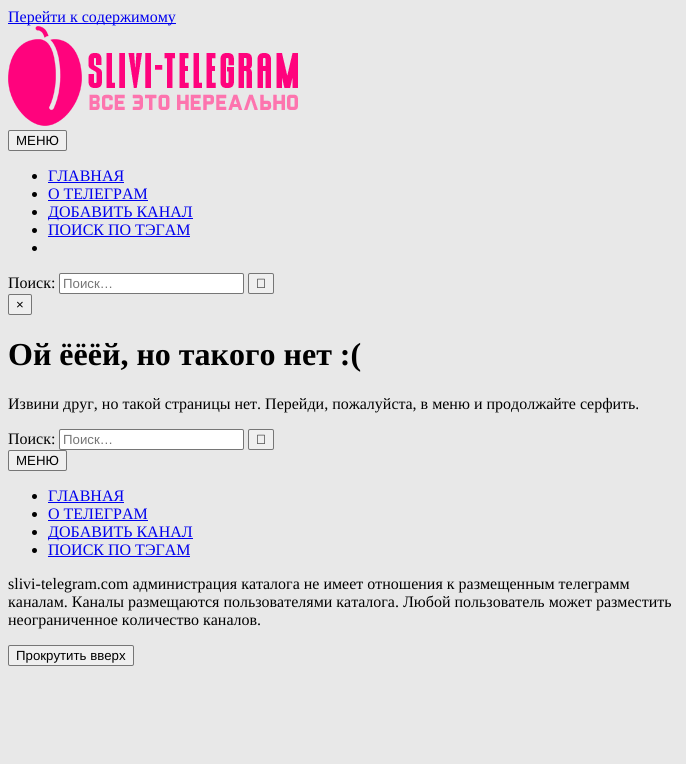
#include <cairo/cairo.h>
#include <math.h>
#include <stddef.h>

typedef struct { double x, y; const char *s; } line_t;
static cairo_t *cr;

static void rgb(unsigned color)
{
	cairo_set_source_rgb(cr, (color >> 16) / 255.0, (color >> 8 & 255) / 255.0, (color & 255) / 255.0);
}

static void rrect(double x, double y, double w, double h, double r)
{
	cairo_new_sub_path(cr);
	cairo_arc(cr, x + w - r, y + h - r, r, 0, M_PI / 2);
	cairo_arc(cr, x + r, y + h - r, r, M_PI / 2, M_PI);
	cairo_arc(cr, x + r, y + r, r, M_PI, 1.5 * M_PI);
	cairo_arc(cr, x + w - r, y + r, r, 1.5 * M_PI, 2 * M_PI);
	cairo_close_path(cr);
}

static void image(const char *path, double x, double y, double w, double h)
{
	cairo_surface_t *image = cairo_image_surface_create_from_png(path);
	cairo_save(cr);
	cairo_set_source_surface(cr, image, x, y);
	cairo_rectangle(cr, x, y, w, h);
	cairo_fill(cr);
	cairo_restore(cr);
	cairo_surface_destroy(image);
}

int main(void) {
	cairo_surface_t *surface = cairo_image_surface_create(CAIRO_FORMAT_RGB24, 686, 764);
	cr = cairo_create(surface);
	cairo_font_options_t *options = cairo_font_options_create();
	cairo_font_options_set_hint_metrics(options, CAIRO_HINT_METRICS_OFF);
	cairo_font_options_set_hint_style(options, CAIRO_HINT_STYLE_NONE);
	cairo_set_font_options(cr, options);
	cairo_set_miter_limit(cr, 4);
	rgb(0xe8e8e8);
	cairo_paint(cr);
	rgb(0x0000ee);
	cairo_rectangle(cr, 8, 23, 168, 1);
	cairo_fill(cr);
	image("img/1.png", 8, 26, 290, 100);
	rgb(0xefefef);
	rrect(8.5, 130.5, 58, 20, 1.5);
	cairo_fill_preserve(cr);
	rgb(0x767676);
	cairo_set_line_width(cr, 1);
	cairo_stroke(cr);
	rgb(0x000000);
	cairo_arc(cr, 34.5, 176.5, 2.5, 0, 2 * M_PI);
	cairo_fill(cr);
	rgb(0x0000ee);
	cairo_rectangle(cr, 48, 182, 76, 1);
	cairo_fill(cr);
	rgb(0x000000);
	cairo_arc(cr, 34.5, 194.5, 2.5, 0, 2 * M_PI);
	cairo_fill(cr);
	rgb(0x0000ee);
	cairo_rectangle(cr, 48, 200, 100, 1);
	cairo_fill(cr);
	rgb(0x000000);
	cairo_arc(cr, 34.5, 212.5, 2.5, 0, 2 * M_PI);
	cairo_fill(cr);
	rgb(0x0000ee);
	cairo_rectangle(cr, 48, 218, 145, 1);
	cairo_fill(cr);
	rgb(0x000000);
	cairo_arc(cr, 34.5, 230.5, 2.5, 0, 2 * M_PI);
	cairo_fill(cr);
	rgb(0x0000ee);
	cairo_rectangle(cr, 48, 236, 142, 1);
	cairo_fill(cr);
	rgb(0x000000);
	cairo_arc(cr, 34.5, 248.5, 2.5, 0, 2 * M_PI);
	cairo_fill(cr);
	rgb(0xffffff);
	rrect(59.5, 273.5, 184, 20, 1.5);
	cairo_fill_preserve(cr);
	rgb(0x767676);
	cairo_stroke(cr);
	rgb(0xefefef);
	rrect(248.5, 273.5, 25, 20, 1.5);
	cairo_fill_preserve(cr);
	rgb(0x767676);
	cairo_stroke(cr);
	image("img/2.png", 257, 278, 8, 10);
	rgb(0xefefef);
	rrect(8.5, 294.5, 23, 20, 1.5);
	cairo_fill_preserve(cr);
	rgb(0x767676);
	cairo_stroke(cr);
	rgb(0xffffff);
	rrect(59.5, 429.5, 184, 20, 1.5);
	cairo_fill_preserve(cr);
	rgb(0x767676);
	cairo_stroke(cr);
	rgb(0xefefef);
	rrect(248.5, 429.5, 25, 20, 1.5);
	cairo_fill_preserve(cr);
	rgb(0x767676);
	cairo_stroke(cr);
	image("img/2.png", 257, 434, 8, 10);
	rgb(0xefefef);
	rrect(8.5, 450.5, 58, 20, 1.5);
	cairo_fill_preserve(cr);
	rgb(0x767676);
	cairo_stroke(cr);
	rgb(0x000000);
	cairo_arc(cr, 34.5, 496.5, 2.5, 0, 2 * M_PI);
	cairo_fill(cr);
	rgb(0x0000ee);
	cairo_rectangle(cr, 48, 502, 76, 1);
	cairo_fill(cr);
	rgb(0x000000);
	cairo_arc(cr, 34.5, 514.5, 2.5, 0, 2 * M_PI);
	cairo_fill(cr);
	rgb(0x0000ee);
	cairo_rectangle(cr, 48, 520, 100, 1);
	cairo_fill(cr);
	rgb(0x000000);
	cairo_arc(cr, 34.5, 532.5, 2.5, 0, 2 * M_PI);
	cairo_fill(cr);
	rgb(0x0000ee);
	cairo_rectangle(cr, 48, 538, 145, 1);
	cairo_fill(cr);
	rgb(0x000000);
	cairo_arc(cr, 34.5, 550.5, 2.5, 0, 2 * M_PI);
	cairo_fill(cr);
	rgb(0x0000ee);
	cairo_rectangle(cr, 48, 556, 142, 1);
	cairo_fill(cr);
	rgb(0xefefef);
	rrect(8.5, 645.5, 125, 20, 1.5);
	cairo_fill_preserve(cr);
	rgb(0x767676);
	cairo_stroke(cr);
	cairo_select_font_face(cr, "Liberation Serif", CAIRO_FONT_SLANT_NORMAL, CAIRO_FONT_WEIGHT_NORMAL);
	cairo_set_font_size(cr, 16);
	rgb(0x0000ee);
	cairo_move_to(cr, 8, 22);
	cairo_show_text(cr, "Перейти к содержимому");
	cairo_select_font_face(cr, "Liberation Sans", CAIRO_FONT_SLANT_NORMAL, CAIRO_FONT_WEIGHT_NORMAL);
	cairo_set_font_size(cr, 13.25);
	rgb(0x000000);
	cairo_move_to(cr, 16, 145);
	cairo_show_text(cr, "МЕНЮ");
	cairo_select_font_face(cr, "Liberation Serif", CAIRO_FONT_SLANT_NORMAL, CAIRO_FONT_WEIGHT_NORMAL);
	cairo_set_font_size(cr, 16);
	rgb(0x0000ee);
	{
		static const line_t items[] = {
			{48, 181, "ГЛАВНАЯ"},
			{48, 199, "О ТЕЛЕГРАМ"},
			{48, 217, "ДОБАВИТЬ КАНАЛ"},
			{48, 235, "ПОИСК ПО ТЭГАМ"},
		};
		for (size_t i = 0; i < sizeof items / sizeof *items; i++) {
			cairo_move_to(cr, items[i].x, items[i].y);
			cairo_show_text(cr, items[i].s);
		}
	}
	rgb(0x000000);
	cairo_move_to(cr, 8, 288);
	cairo_show_text(cr, "Поиск:");
	cairo_select_font_face(cr, "Liberation Sans", CAIRO_FONT_SLANT_NORMAL, CAIRO_FONT_WEIGHT_NORMAL);
	cairo_set_font_size(cr, 13.25);
	rgb(0x757575);
	cairo_move_to(cr, 63, 288);
	cairo_show_text(cr, "Поиск…");
	rgb(0x000000);
	cairo_move_to(cr, 16, 309);
	cairo_show_text(cr, "×");
	cairo_select_font_face(cr, "Liberation Serif", CAIRO_FONT_SLANT_NORMAL, CAIRO_FONT_WEIGHT_BOLD);
	cairo_set_font_size(cr, 32);
	cairo_move_to(cr, 8, 365);
	cairo_show_text(cr, "Ой ёёёй, но такого нет :(");
	cairo_select_font_face(cr, "Liberation Serif", CAIRO_FONT_SLANT_NORMAL, CAIRO_FONT_WEIGHT_NORMAL);
	cairo_set_font_size(cr, 16);
	cairo_move_to(cr, 8, 409);
	cairo_show_text(cr, "Извини друг, но такой страницы нет. Перейди, пожалуйста, в меню и продолжайте серфить.");
	cairo_move_to(cr, 8, 444);
	cairo_show_text(cr, "Поиск:");
	cairo_select_font_face(cr, "Liberation Sans", CAIRO_FONT_SLANT_NORMAL, CAIRO_FONT_WEIGHT_NORMAL);
	cairo_set_font_size(cr, 13.25);
	rgb(0x757575);
	cairo_move_to(cr, 63, 444);
	cairo_show_text(cr, "Поиск…");
	rgb(0x000000);
	cairo_move_to(cr, 16, 465);
	cairo_show_text(cr, "МЕНЮ");
	cairo_select_font_face(cr, "Liberation Serif", CAIRO_FONT_SLANT_NORMAL, CAIRO_FONT_WEIGHT_NORMAL);
	cairo_set_font_size(cr, 16);
	rgb(0x0000ee);
	{
		static const line_t items[] = {
			{48, 501, "ГЛАВНАЯ"},
			{48, 519, "О ТЕЛЕГРАМ"},
			{48, 537, "ДОБАВИТЬ КАНАЛ"},
			{48, 555, "ПОИСК ПО ТЭГАМ"},
		};
		for (size_t i = 0; i < sizeof items / sizeof *items; i++) {
			cairo_move_to(cr, items[i].x, items[i].y);
			cairo_show_text(cr, items[i].s);
		}
	}
	rgb(0x000000);
	{
		static const line_t items[] = {
			{8, 589, "slivi-telegram.com администрация каталога не имеет отношения к размещенным телеграмм"},
			{8, 607, "каналам. Каналы размещаются пользователями каталога. Любой пользователь может разместить"},
			{8, 625, "неограниченное количество каналов."},
		};
		for (size_t i = 0; i < sizeof items / sizeof *items; i++) {
			cairo_move_to(cr, items[i].x, items[i].y);
			cairo_show_text(cr, items[i].s);
		}
	}
	cairo_select_font_face(cr, "Liberation Sans", CAIRO_FONT_SLANT_NORMAL, CAIRO_FONT_WEIGHT_NORMAL);
	cairo_set_font_size(cr, 13.25);
	cairo_move_to(cr, 16, 660);
	cairo_show_text(cr, "Прокрутить вверх");
	cairo_surface_write_to_png(surface, "page.png");
	cairo_font_options_destroy(options);
	cairo_destroy(cr);
	cairo_surface_destroy(surface);
	return 0;
}
